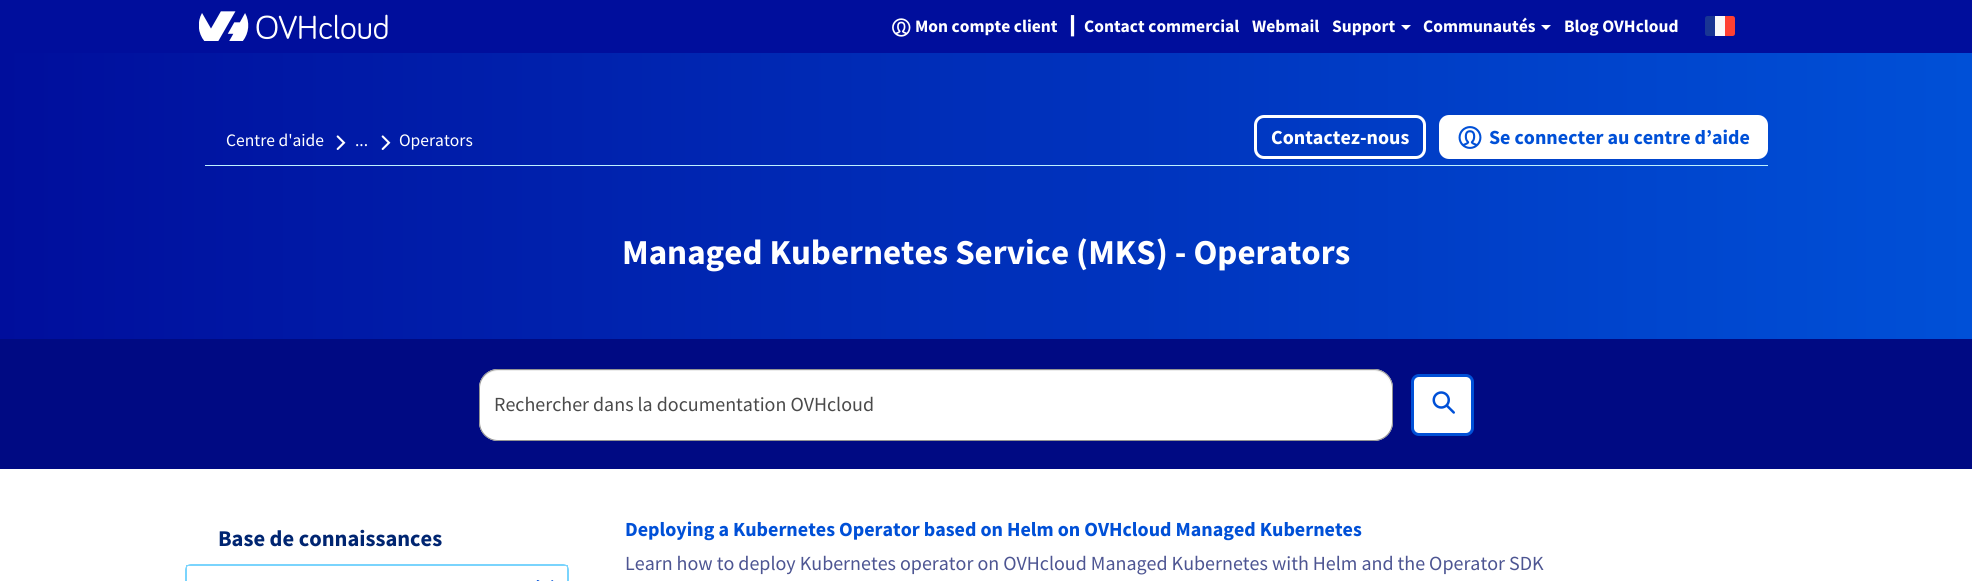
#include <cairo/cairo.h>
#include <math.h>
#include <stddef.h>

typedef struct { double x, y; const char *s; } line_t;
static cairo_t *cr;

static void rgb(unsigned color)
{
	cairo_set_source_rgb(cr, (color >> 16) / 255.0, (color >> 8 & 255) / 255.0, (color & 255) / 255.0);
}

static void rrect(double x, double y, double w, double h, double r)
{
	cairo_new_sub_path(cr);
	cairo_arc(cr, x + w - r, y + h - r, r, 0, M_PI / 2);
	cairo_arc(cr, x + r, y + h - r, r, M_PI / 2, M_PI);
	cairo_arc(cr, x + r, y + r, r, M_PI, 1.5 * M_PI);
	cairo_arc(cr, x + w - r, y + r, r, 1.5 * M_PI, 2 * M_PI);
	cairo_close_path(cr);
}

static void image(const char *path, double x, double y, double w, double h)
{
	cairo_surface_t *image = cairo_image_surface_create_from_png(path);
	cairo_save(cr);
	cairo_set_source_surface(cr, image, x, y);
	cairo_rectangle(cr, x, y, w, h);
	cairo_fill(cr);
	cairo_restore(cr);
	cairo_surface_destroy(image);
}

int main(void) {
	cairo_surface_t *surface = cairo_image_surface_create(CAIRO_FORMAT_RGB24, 1972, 581);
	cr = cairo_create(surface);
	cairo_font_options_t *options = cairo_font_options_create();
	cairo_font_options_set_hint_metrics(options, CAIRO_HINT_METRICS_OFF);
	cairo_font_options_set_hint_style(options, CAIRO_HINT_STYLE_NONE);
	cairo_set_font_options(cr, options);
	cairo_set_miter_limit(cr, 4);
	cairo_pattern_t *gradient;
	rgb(0xffffff);
	cairo_paint(cr);
	rgb(0x000e9c);
	cairo_rectangle(cr, 0, 0, 1972, 53);
	cairo_fill(cr);
	image("img/1.png", 199, 11, 189, 30);
	image("img/2.png", 892, 18, 19, 19);
	rgb(0xffffff);
	cairo_new_path(cr);
	cairo_move_to(cr, 1401, 25);
	cairo_line_to(cr, 1411, 25);
	cairo_line_to(cr, 1406, 30);
	cairo_close_path(cr);
	cairo_fill(cr);
	cairo_new_path(cr);
	cairo_move_to(cr, 1541, 25);
	cairo_line_to(cr, 1551, 25);
	cairo_line_to(cr, 1546, 30);
	cairo_close_path(cr);
	cairo_fill(cr);
	rgb(0x193593);
	cairo_new_path(cr);
	cairo_move_to(cr, 1707.5, 16);
	cairo_line_to(cr, 1715, 16);
	cairo_line_to(cr, 1715, 36);
	cairo_line_to(cr, 1707.5, 36);
	cairo_curve_to(cr, 1706, 36, 1705, 35, 1705, 33.5);
	cairo_line_to(cr, 1705, 18.5);
	cairo_curve_to(cr, 1705, 17, 1706, 16, 1707.5, 16);
	cairo_close_path(cr);
	cairo_fill(cr);
	rgb(0xf9f9f9);
	cairo_rectangle(cr, 1715, 16, 10, 20);
	cairo_fill(cr);
	rgb(0xff4032);
	cairo_new_path(cr);
	cairo_move_to(cr, 1725, 16);
	cairo_line_to(cr, 1732.5, 16);
	cairo_curve_to(cr, 1734, 16, 1735, 17, 1735, 18.5);
	cairo_line_to(cr, 1735, 33.5);
	cairo_curve_to(cr, 1735, 35, 1734, 36, 1732.5, 36);
	cairo_line_to(cr, 1725, 36);
	cairo_close_path(cr);
	cairo_fill(cr);
	gradient = cairo_pattern_create_linear(0, 196, 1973, 196);
	cairo_pattern_add_color_stop_rgba(gradient, 0, 0, 0.055, 0.612, 1);
	cairo_pattern_add_color_stop_rgba(gradient, 1, 0, 0.314, 0.843, 1);
	cairo_set_source(cr, gradient);
	cairo_pattern_destroy(gradient);
	cairo_rectangle(cr, 0, 53, 1972, 286);
	cairo_fill(cr);
	rgb(0xbef1ff);
	cairo_rectangle(cr, 205, 165, 1563, 1);
	cairo_fill(cr);
	image("img/3.png", 336, 135, 10, 15);
	image("img/4.png", 381, 135, 10, 15);
	rrect(1255.5, 116.5, 169, 41, 8.5);
	rgb(0xffffff);
	cairo_set_line_width(cr, 3);
	cairo_stroke(cr);
	rrect(1440.5, 116.5, 326, 41, 8.5);
	cairo_fill_preserve(cr);
	cairo_stroke(cr);
	image("img/5.png", 1458, 126, 24, 23);
	rgb(0x000a83);
	cairo_rectangle(cr, 0, 339, 1972, 130);
	cairo_fill(cr);
	rgb(0xffffff);
	rrect(479, 369, 914, 72, 19);
	cairo_fill(cr);
	rgb(0xececec);
	cairo_new_path(cr);
	cairo_move_to(cr, 498, 371);
	cairo_line_to(cr, 1374, 371);
	cairo_curve_to(cr, 1383, 371, 1391, 379, 1391, 389);
	cairo_curve_to(cr, 1391, 379, 1384, 370, 1373, 370);
	cairo_line_to(cr, 498, 370);
	cairo_curve_to(cr, 487, 370, 480, 379, 480, 389);
	cairo_curve_to(cr, 480, 379, 488, 371, 498, 371);
	cairo_close_path(cr);
	cairo_fill(cr);
	rrect(479.5, 369.5, 913, 71, 18.5);
	rgb(0x939393);
	cairo_set_line_width(cr, 1);
	cairo_stroke(cr);
	rgb(0xffffff);
	rrect(1412.5, 375.5, 60, 59, 6.5);
	cairo_fill_preserve(cr);
	rgb(0x0050d7);
	cairo_set_line_width(cr, 3);
	cairo_stroke(cr);
	image("img/6.png", 1432, 391, 23, 23);
	rrect(185.5, 564.5, 383, 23, 5.5);
	rgb(0x7ad4fd);
	cairo_set_line_width(cr, 1);
	cairo_stroke(cr);
	cairo_rectangle(cr, 186.5, 565.5, 381, 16);
	cairo_stroke(cr);
	rgb(0x0050d7);
	cairo_new_path(cr);
	cairo_move_to(cr, 551.5, 580.5);
	cairo_line_to(cr, 545, 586.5);
	cairo_curve_to(cr, 544, 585.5, 539, 579.5, 537.5, 580);
	cairo_curve_to(cr, 535, 581, 539, 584, 539.5, 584.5);
	cairo_line_to(cr, 545, 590);
	cairo_line_to(cr, 553, 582);
	cairo_curve_to(cr, 553.5, 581.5, 553.5, 581, 553, 580.5);
	cairo_curve_to(cr, 552.5, 580, 552, 580, 551.5, 580.5);
	cairo_close_path(cr);
	cairo_fill(cr);
	cairo_select_font_face(cr, "Source Sans Pro", CAIRO_FONT_SLANT_NORMAL, CAIRO_FONT_WEIGHT_BOLD);
	cairo_set_font_size(cr, 17.5);
	rgb(0xffffff);
	cairo_move_to(cr, 915, 32);
	cairo_show_text(cr, "Mon compte client");
	cairo_select_font_face(cr, "DejaVu Sans", CAIRO_FONT_SLANT_NORMAL, CAIRO_FONT_WEIGHT_BOLD);
	cairo_move_to(cr, 1067, 32);
	cairo_show_text(cr, "┃");
	cairo_select_font_face(cr, "Source Sans Pro", CAIRO_FONT_SLANT_NORMAL, CAIRO_FONT_WEIGHT_BOLD);
	{
		static const line_t items[] = {
			{1084, 32, "Contact commercial"},
			{1252, 32, "Webmail"},
			{1332, 32, "Support"},
			{1423, 32, "Communautés"},
			{1564, 32, "Blog OVHcloud"},
		};
		for (size_t i = 0; i < sizeof items / sizeof *items; i++) {
			cairo_move_to(cr, items[i].x, items[i].y);
			cairo_show_text(cr, items[i].s);
		}
	}
	cairo_select_font_face(cr, "Source Sans Pro", CAIRO_FONT_SLANT_NORMAL, CAIRO_FONT_WEIGHT_NORMAL);
	{
		static const line_t items[] = {
			{226, 146, "Centre d'aide"},
			{355, 146, "..."},
			{399, 146, "Operators"},
		};
		for (size_t i = 0; i < sizeof items / sizeof *items; i++) {
			cairo_move_to(cr, items[i].x, items[i].y);
			cairo_show_text(cr, items[i].s);
		}
	}
	cairo_select_font_face(cr, "Source Sans Pro", CAIRO_FONT_SLANT_NORMAL, CAIRO_FONT_WEIGHT_BOLD);
	cairo_set_font_size(cr, 20);
	cairo_move_to(cr, 1271, 144);
	cairo_show_text(cr, "Contactez-nous");
	rgb(0x0050d7);
	cairo_move_to(cr, 1489, 144);
	cairo_show_text(cr, "Se connecter au centre d’aide");
	cairo_set_font_size(cr, 35);
	rgb(0xffffff);
	cairo_move_to(cr, 622, 264);
	cairo_show_text(cr, "Managed Kubernetes Service (MKS) - Operators");
	cairo_select_font_face(cr, "Source Sans Pro", CAIRO_FONT_SLANT_NORMAL, CAIRO_FONT_WEIGHT_NORMAL);
	cairo_set_font_size(cr, 20);
	rgb(0x4a4a4a);
	cairo_move_to(cr, 494, 411);
	cairo_show_text(cr, "Rechercher dans la documentation OVHcloud");
	cairo_select_font_face(cr, "Source Sans Pro", CAIRO_FONT_SLANT_NORMAL, CAIRO_FONT_WEIGHT_BOLD);
	cairo_set_font_size(cr, 22.5);
	rgb(0x002571);
	cairo_move_to(cr, 218, 546);
	cairo_show_text(cr, "Base de connaissances");
	cairo_set_font_size(cr, 20);
	rgb(0x0050d7);
	cairo_move_to(cr, 625, 536);
	cairo_show_text(cr, "Deploying a Kubernetes Operator based on Helm on OVHcloud Managed Kubernetes");
	cairo_select_font_face(cr, "Source Sans Pro", CAIRO_FONT_SLANT_NORMAL, CAIRO_FONT_WEIGHT_NORMAL);
	rgb(0x4d5592);
	cairo_move_to(cr, 625, 570);
	cairo_show_text(cr, "Learn how to deploy Kubernetes operator on OVHcloud Managed Kubernetes with Helm and the Operator SDK");
	cairo_surface_write_to_png(surface, "page.png");
	cairo_font_options_destroy(options);
	cairo_destroy(cr);
	cairo_surface_destroy(surface);
	return 0;
}
